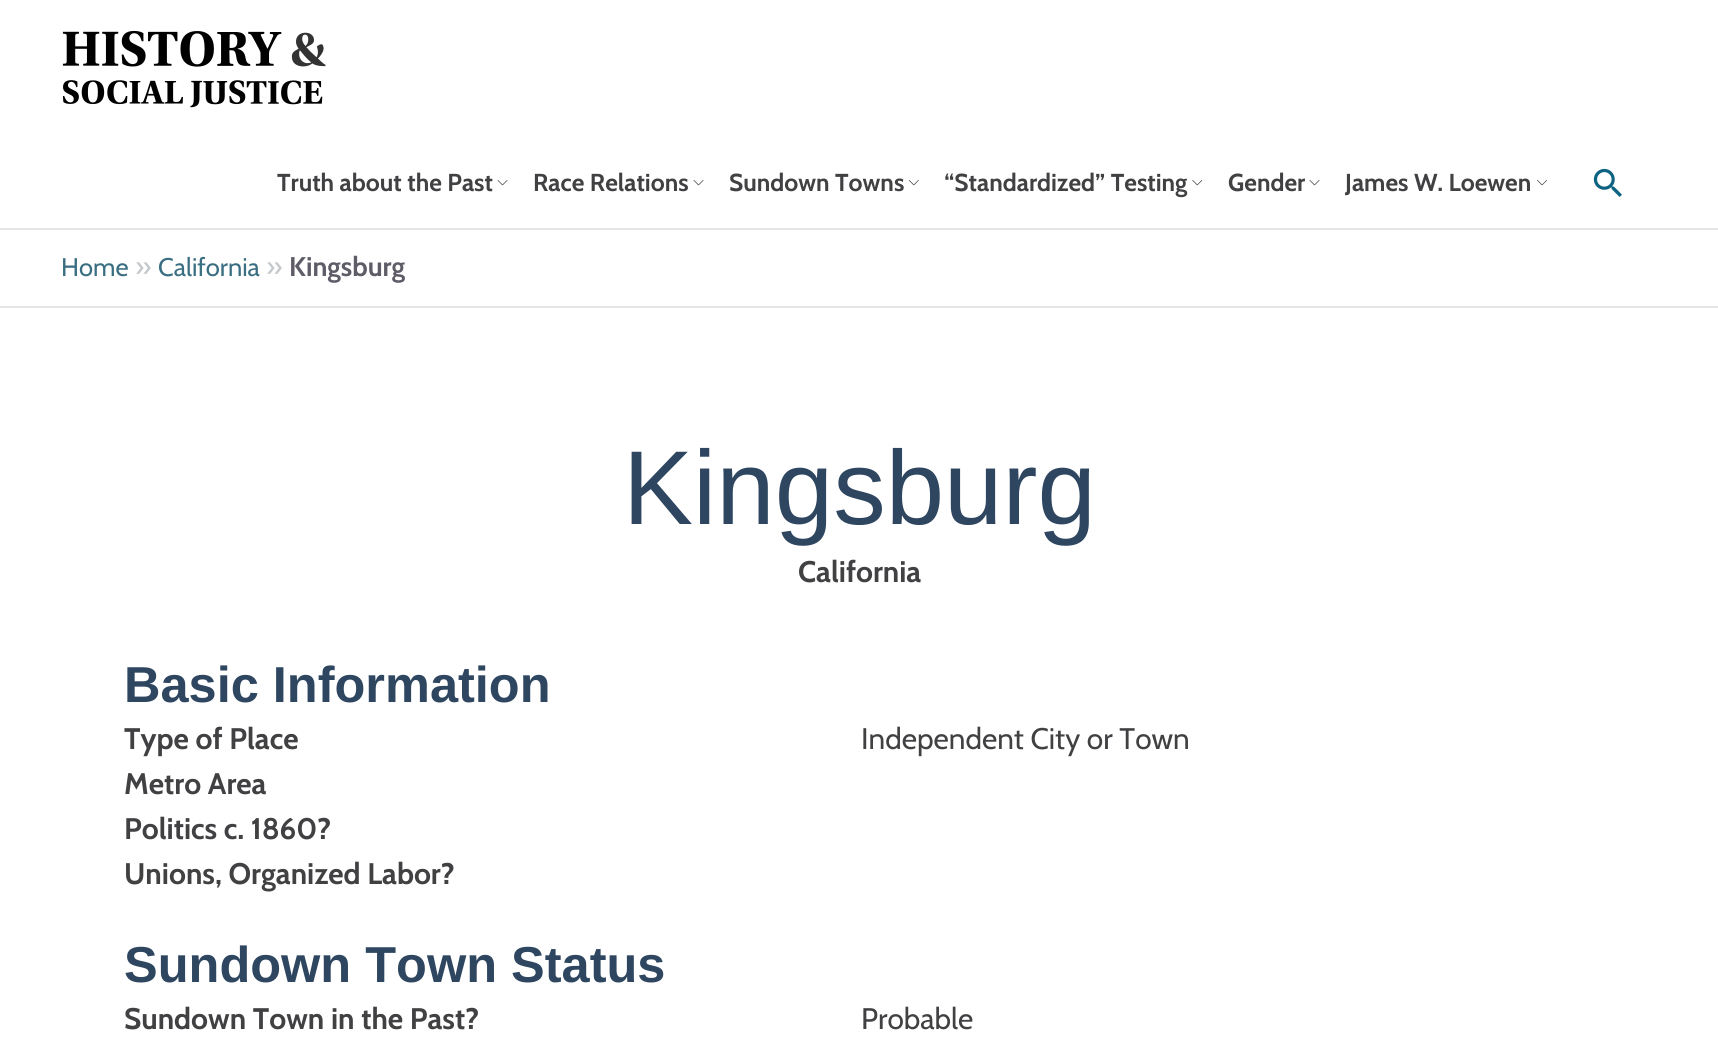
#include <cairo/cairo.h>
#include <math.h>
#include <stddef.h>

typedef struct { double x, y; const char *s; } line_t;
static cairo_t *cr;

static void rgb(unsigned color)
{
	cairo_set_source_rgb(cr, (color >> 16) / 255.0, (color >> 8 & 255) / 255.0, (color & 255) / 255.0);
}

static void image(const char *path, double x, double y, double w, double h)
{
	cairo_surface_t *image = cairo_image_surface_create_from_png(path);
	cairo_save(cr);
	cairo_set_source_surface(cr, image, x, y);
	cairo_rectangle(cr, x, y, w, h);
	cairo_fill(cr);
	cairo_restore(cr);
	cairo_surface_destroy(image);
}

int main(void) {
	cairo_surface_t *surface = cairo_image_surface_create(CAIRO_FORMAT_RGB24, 1718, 1039);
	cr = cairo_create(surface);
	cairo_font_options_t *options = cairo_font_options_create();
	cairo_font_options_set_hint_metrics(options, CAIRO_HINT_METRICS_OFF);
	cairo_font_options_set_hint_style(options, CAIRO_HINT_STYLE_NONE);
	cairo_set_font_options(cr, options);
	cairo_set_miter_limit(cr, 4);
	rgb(0xffffff);
	cairo_paint(cr);
	rgb(0xe5e5e5);
	cairo_rectangle(cr, 0, 228, 1718, 2);
	cairo_fill(cr);
	image("img/1.png", 62, 30, 264, 78);
	image("img/2.png", 497, 180, 11, 6);
	image("img/2.png", 693, 180, 11, 6);
	image("img/3.png", 908, 180, 11, 6);
	image("img/4.png", 1192, 180, 11, 6);
	image("img/2.png", 1309, 180, 11, 6);
	image("img/5.png", 1537, 180, 10, 6);
	image("img/6.png", 1593, 168, 29, 29);
	cairo_rectangle(cr, 0, 306, 1718, 2);
	cairo_fill(cr);
	cairo_select_font_face(cr, "Cabin", CAIRO_FONT_SLANT_NORMAL, CAIRO_FONT_WEIGHT_BOLD);
	cairo_set_font_size(cr, 24.5);
	rgb(0x414042);
	{
		static const line_t items[] = {
			{277, 191, "Truth about the Past"},
			{533, 191, "Race Relations"},
			{729, 191, "Sundown Towns"},
			{944, 191, "“Standardized” Testing"},
			{1228, 191, "Gender"},
			{1345, 191, "James W. Loewen"},
		};
		for (size_t i = 0; i < sizeof items / sizeof *items; i++) {
			cairo_move_to(cr, items[i].x, items[i].y);
			cairo_show_text(cr, items[i].s);
		}
	}
	cairo_select_font_face(cr, "Cabin", CAIRO_FONT_SLANT_NORMAL, CAIRO_FONT_WEIGHT_NORMAL);
	cairo_set_font_size(cr, 25.5);
	rgb(0x3a6e82);
	cairo_move_to(cr, 61, 276);
	cairo_show_text(cr, "Home");
	cairo_set_font_size(cr, 28);
	rgb(0xc5c9cc);
	cairo_move_to(cr, 135, 276);
	cairo_show_text(cr, "»");
	cairo_set_font_size(cr, 25.5);
	rgb(0x3a6e82);
	cairo_move_to(cr, 158, 276);
	cairo_show_text(cr, "California");
	cairo_set_font_size(cr, 28);
	rgb(0xc5c9cc);
	cairo_move_to(cr, 266, 276);
	cairo_show_text(cr, "»");
	cairo_select_font_face(cr, "Cabin", CAIRO_FONT_SLANT_NORMAL, CAIRO_FONT_WEIGHT_BOLD);
	cairo_set_font_size(cr, 27);
	rgb(0x5f5c68);
	cairo_move_to(cr, 289, 276);
	cairo_show_text(cr, "Kingsburg");
	cairo_select_font_face(cr, "Liberation Sans", CAIRO_FONT_SLANT_NORMAL, CAIRO_FONT_WEIGHT_NORMAL);
	cairo_set_font_size(cr, 105);
	rgb(0x2e4660);
	cairo_move_to(cr, 623, 524);
	cairo_show_text(cr, "Kingsburg");
	cairo_select_font_face(cr, "Cabin", CAIRO_FONT_SLANT_NORMAL, CAIRO_FONT_WEIGHT_BOLD);
	cairo_set_font_size(cr, 29.75);
	rgb(0x414042);
	cairo_move_to(cr, 798, 582);
	cairo_show_text(cr, "California");
	cairo_select_font_face(cr, "Liberation Sans", CAIRO_FONT_SLANT_NORMAL, CAIRO_FONT_WEIGHT_BOLD);
	cairo_set_font_size(cr, 50.5);
	rgb(0x2e4660);
	cairo_move_to(cr, 124, 702);
	cairo_show_text(cr, "Basic Information");
	cairo_select_font_face(cr, "Cabin", CAIRO_FONT_SLANT_NORMAL, CAIRO_FONT_WEIGHT_BOLD);
	cairo_set_font_size(cr, 29.75);
	rgb(0x414042);
	cairo_move_to(cr, 124, 749);
	cairo_show_text(cr, "Type of Place");
	cairo_select_font_face(cr, "Cabin", CAIRO_FONT_SLANT_NORMAL, CAIRO_FONT_WEIGHT_NORMAL);
	cairo_move_to(cr, 861, 749);
	cairo_show_text(cr, "Independent City or Town");
	cairo_select_font_face(cr, "Cabin", CAIRO_FONT_SLANT_NORMAL, CAIRO_FONT_WEIGHT_BOLD);
	{
		static const line_t items[] = {
			{124, 794, "Metro Area"},
			{124, 839, "Politics c. 1860?"},
			{124, 884, "Unions, Organized Labor?"},
		};
		for (size_t i = 0; i < sizeof items / sizeof *items; i++) {
			cairo_move_to(cr, items[i].x, items[i].y);
			cairo_show_text(cr, items[i].s);
		}
	}
	cairo_select_font_face(cr, "Liberation Sans", CAIRO_FONT_SLANT_NORMAL, CAIRO_FONT_WEIGHT_BOLD);
	cairo_set_font_size(cr, 50.5);
	rgb(0x2e4660);
	cairo_move_to(cr, 124, 982);
	cairo_show_text(cr, "Sundown Town Status");
	cairo_select_font_face(cr, "Cabin", CAIRO_FONT_SLANT_NORMAL, CAIRO_FONT_WEIGHT_BOLD);
	cairo_set_font_size(cr, 29.75);
	rgb(0x414042);
	cairo_move_to(cr, 124, 1029);
	cairo_show_text(cr, "Sundown Town in the Past?");
	cairo_select_font_face(cr, "Cabin", CAIRO_FONT_SLANT_NORMAL, CAIRO_FONT_WEIGHT_NORMAL);
	cairo_move_to(cr, 861, 1029);
	cairo_show_text(cr, "Probable");
	cairo_surface_write_to_png(surface, "page.png");
	cairo_font_options_destroy(options);
	cairo_destroy(cr);
	cairo_surface_destroy(surface);
	return 0;
}
